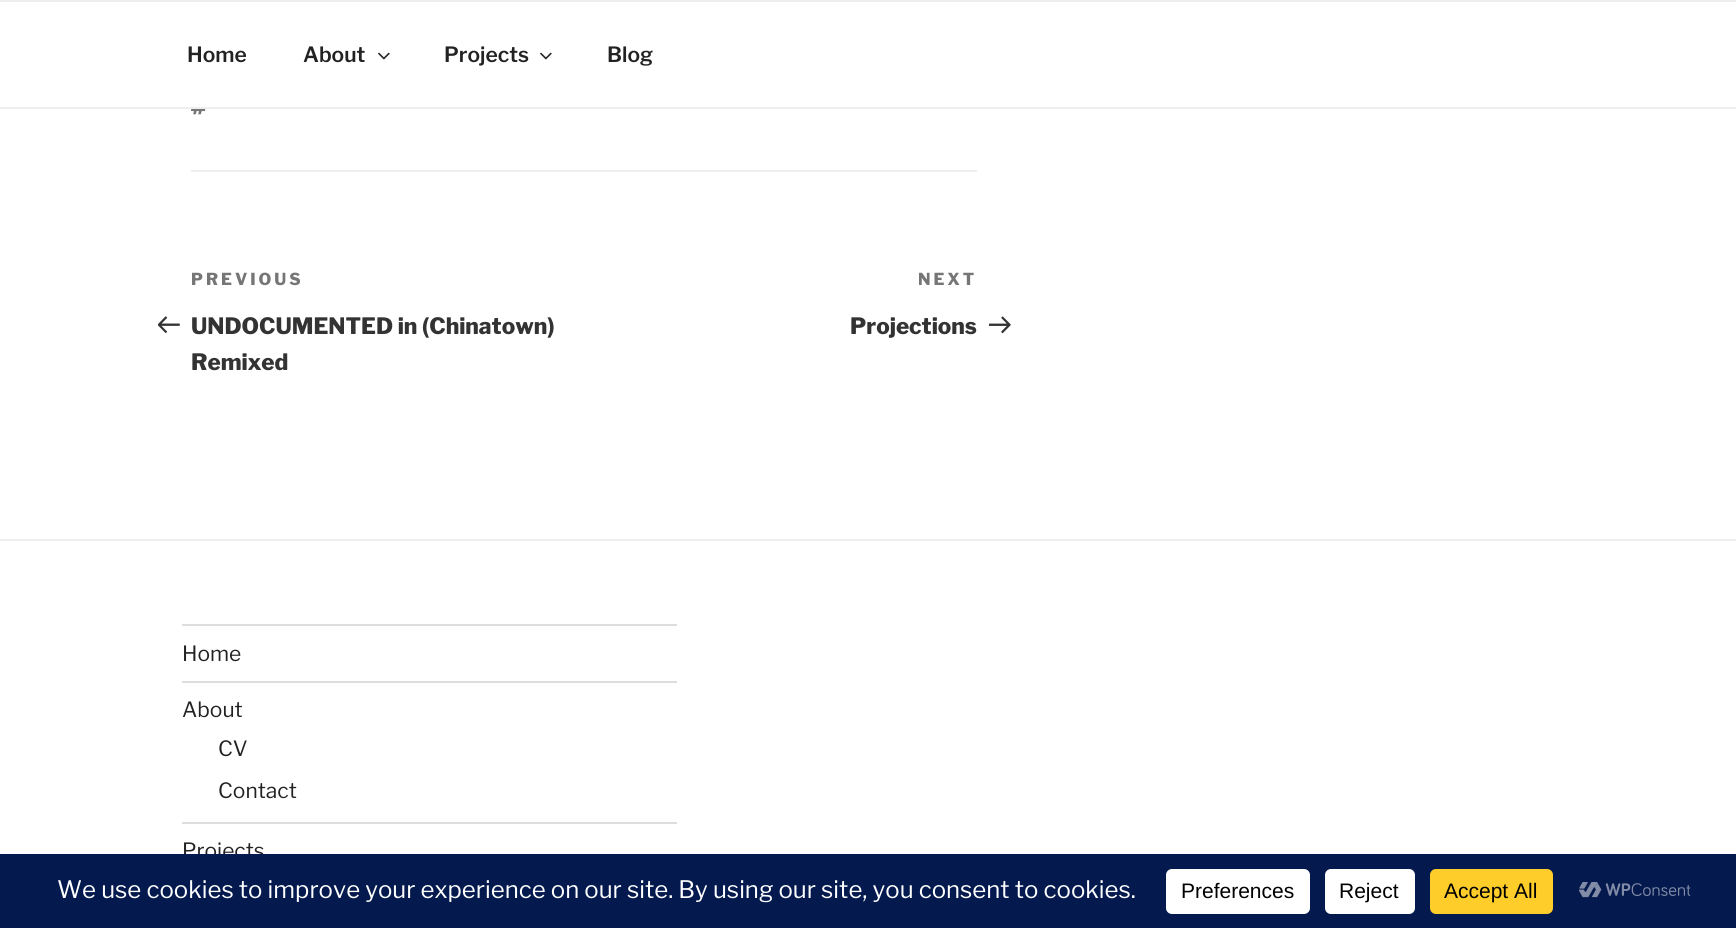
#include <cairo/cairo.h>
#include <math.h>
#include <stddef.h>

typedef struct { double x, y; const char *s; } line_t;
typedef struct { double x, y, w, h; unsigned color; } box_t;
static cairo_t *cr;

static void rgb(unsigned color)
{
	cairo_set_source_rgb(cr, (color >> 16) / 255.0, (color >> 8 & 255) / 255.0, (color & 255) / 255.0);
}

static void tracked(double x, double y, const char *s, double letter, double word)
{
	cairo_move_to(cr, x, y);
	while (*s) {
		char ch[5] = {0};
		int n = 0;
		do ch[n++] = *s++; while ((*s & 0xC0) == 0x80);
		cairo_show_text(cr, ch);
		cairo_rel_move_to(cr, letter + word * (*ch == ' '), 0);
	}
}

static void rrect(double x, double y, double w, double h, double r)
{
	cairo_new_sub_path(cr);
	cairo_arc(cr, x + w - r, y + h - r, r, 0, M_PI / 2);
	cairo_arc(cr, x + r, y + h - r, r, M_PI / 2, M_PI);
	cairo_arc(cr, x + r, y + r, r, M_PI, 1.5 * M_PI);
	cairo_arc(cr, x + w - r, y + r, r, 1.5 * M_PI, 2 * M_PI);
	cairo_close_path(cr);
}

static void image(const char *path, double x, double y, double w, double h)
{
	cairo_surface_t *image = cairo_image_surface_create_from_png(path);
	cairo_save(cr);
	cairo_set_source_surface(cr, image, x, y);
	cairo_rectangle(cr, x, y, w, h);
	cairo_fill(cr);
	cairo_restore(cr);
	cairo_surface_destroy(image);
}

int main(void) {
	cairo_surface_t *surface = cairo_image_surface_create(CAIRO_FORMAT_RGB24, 1736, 928);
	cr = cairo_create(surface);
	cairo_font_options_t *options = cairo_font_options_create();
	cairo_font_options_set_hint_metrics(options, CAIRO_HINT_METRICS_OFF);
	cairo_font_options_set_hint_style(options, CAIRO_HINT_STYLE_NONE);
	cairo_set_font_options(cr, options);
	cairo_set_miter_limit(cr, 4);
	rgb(0xffffff);
	cairo_paint(cr);
	rgb(0xeeeeee);
	cairo_rectangle(cr, 0, 0, 1736, 2);
	cairo_fill(cr);
	cairo_rectangle(cr, 0, 107, 1736, 2);
	cairo_fill(cr);
	image("img/1.png", 378, 52, 12, 8);
	image("img/1.png", 540, 52, 12, 8);
	cairo_rectangle(cr, 191, 170, 786, 2);
	cairo_fill(cr);
	image("img/2.png", 191, 109, 15, 6);
	image("img/3.png", 158, 316, 22, 18);
	image("img/4.png", 989, 316, 22, 18);
	{
		static const box_t items[] = {
			{0, 539, 1736, 2, 0xeeeeee},
			{182, 624, 495, 2, 0xdddddd},
			{182, 681, 495, 2, 0xdddddd},
			{182, 822, 495, 2, 0xdddddd},
		};
		for (size_t i = 0; i < sizeof items / sizeof *items; i++) {
			rgb(items[i].color);
			cairo_rectangle(cr, items[i].x, items[i].y, items[i].w, items[i].h);
			cairo_fill(cr);
		}
	}
	cairo_select_font_face(cr, "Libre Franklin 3 Thin", CAIRO_FONT_SLANT_NORMAL, CAIRO_FONT_WEIGHT_NORMAL);
	cairo_set_font_size(cr, 21);
	rgb(0x222222);
	{
		static const line_t items[] = {
			{187, 62, "Home"},
			{303, 62, "About"},
			{444, 62, "Projects"},
			{607, 62, "Blog"},
		};
		for (size_t i = 0; i < sizeof items / sizeof *items; i++) {
			cairo_move_to(cr, items[i].x, items[i].y);
			cairo_show_text(cr, items[i].s);
		}
	}
	cairo_select_font_face(cr, "Libre Franklin Thin", CAIRO_FONT_SLANT_NORMAL, CAIRO_FONT_WEIGHT_NORMAL);
	cairo_set_font_size(cr, 16.5);
	rgb(0x767676);
	tracked(191, 285, "PREVIOUS", 3, 0);
	cairo_set_font_size(cr, 22.5);
	rgb(0x333333);
	cairo_move_to(cr, 191, 334);
	cairo_show_text(cr, "UNDOCUMENTED in (Chinatown)");
	cairo_move_to(cr, 191, 370);
	cairo_show_text(cr, "Remixed");
	cairo_set_font_size(cr, 16.5);
	rgb(0x767676);
	tracked(918, 285, "NEXT", 3, 0);
	cairo_set_font_size(cr, 22.5);
	rgb(0x333333);
	cairo_move_to(cr, 850, 334);
	cairo_show_text(cr, "Projections");
	cairo_select_font_face(cr, "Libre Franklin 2 Thin", CAIRO_FONT_SLANT_NORMAL, CAIRO_FONT_WEIGHT_NORMAL);
	cairo_set_font_size(cr, 21);
	rgb(0x222222);
	{
		static const line_t items[] = {
			{182, 661, "Home"},
			{182, 717, "About"},
			{218, 756, "CV"},
			{218, 798, "Contact"},
			{182, 858, "Projects"},
		};
		for (size_t i = 0; i < sizeof items / sizeof *items; i++) {
			cairo_move_to(cr, items[i].x, items[i].y);
			cairo_show_text(cr, items[i].s);
		}
	}
	rgb(0x04194e);
	cairo_rectangle(cr, 0, 854, 1736, 74);
	cairo_fill(cr);
	cairo_set_font_size(cr, 24);
	rgb(0xffffff);
	cairo_move_to(cr, 57, 898);
	cairo_show_text(cr, "We use cookies to improve your experience on our site. By using our site, you consent to cookies.");
	rrect(1166, 869, 144, 45, 6);
	cairo_fill(cr);
	cairo_select_font_face(cr, "Liberation Sans", CAIRO_FONT_SLANT_NORMAL, CAIRO_FONT_WEIGHT_NORMAL);
	cairo_set_font_size(cr, 21);
	rgb(0x000000);
	cairo_move_to(cr, 1181, 898);
	cairo_show_text(cr, "Preferences");
	rgb(0xffffff);
	rrect(1325, 869, 90, 45, 6);
	cairo_fill(cr);
	rgb(0x000000);
	cairo_move_to(cr, 1339, 898);
	cairo_show_text(cr, "Reject");
	rgb(0xffcd2a);
	rrect(1430, 869, 123, 45, 6);
	cairo_fill(cr);
	rgb(0x000000);
	cairo_move_to(cr, 1444, 898);
	cairo_show_text(cr, "Accept All");
	image("img/5.png", 1579, 882, 112, 16);
	cairo_surface_write_to_png(surface, "page.png");
	cairo_font_options_destroy(options);
	cairo_destroy(cr);
	cairo_surface_destroy(surface);
	return 0;
}
